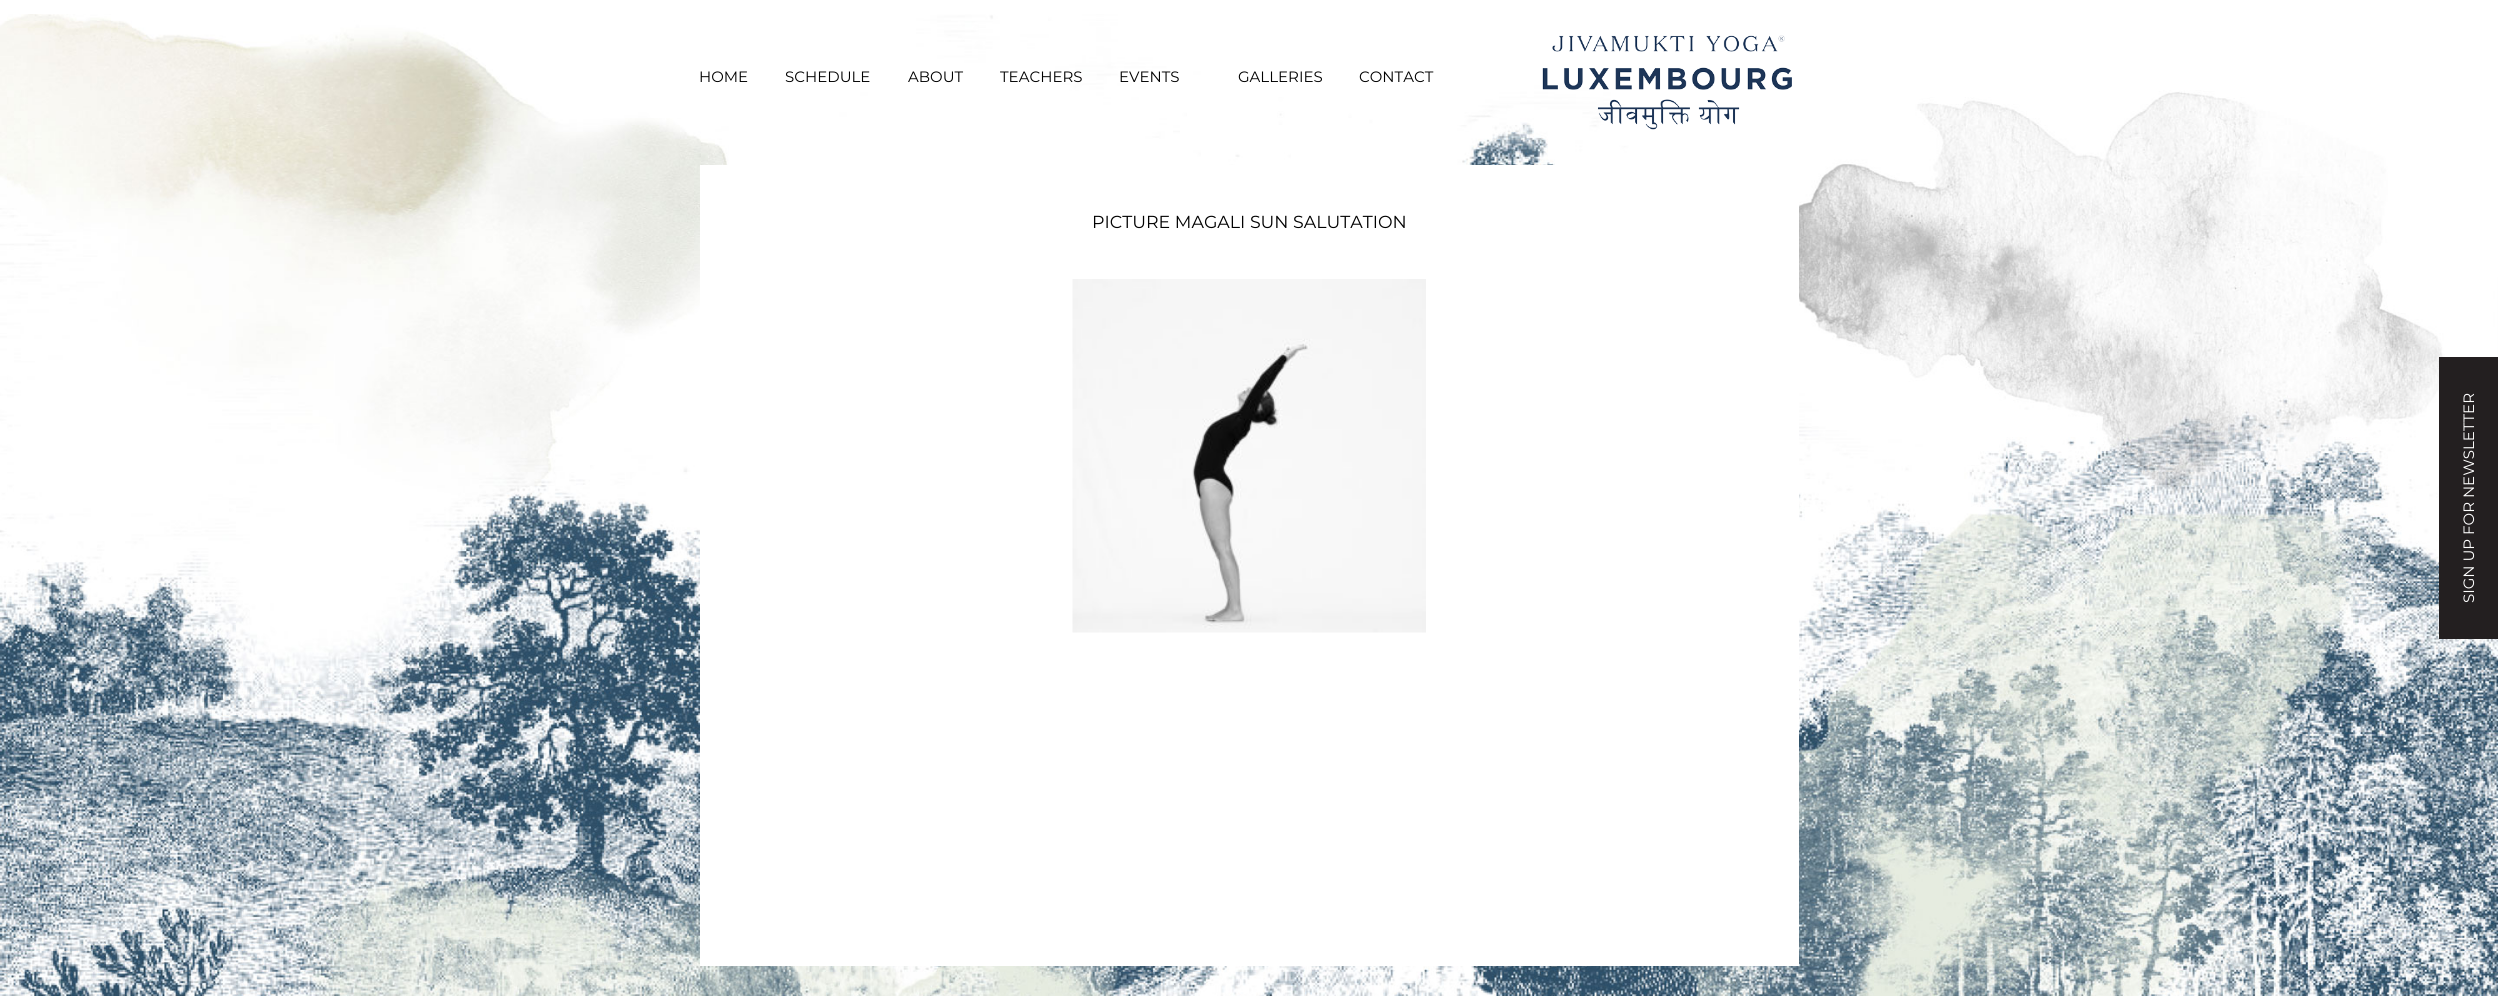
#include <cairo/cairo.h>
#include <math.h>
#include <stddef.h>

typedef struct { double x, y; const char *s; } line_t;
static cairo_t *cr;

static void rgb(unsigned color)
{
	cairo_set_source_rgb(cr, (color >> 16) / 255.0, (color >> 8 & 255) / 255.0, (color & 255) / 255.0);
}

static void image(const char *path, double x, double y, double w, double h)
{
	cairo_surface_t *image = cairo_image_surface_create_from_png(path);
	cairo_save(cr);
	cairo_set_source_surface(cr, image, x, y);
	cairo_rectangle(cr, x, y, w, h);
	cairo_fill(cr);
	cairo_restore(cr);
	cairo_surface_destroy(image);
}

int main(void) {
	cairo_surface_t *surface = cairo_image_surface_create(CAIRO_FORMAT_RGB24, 2498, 996);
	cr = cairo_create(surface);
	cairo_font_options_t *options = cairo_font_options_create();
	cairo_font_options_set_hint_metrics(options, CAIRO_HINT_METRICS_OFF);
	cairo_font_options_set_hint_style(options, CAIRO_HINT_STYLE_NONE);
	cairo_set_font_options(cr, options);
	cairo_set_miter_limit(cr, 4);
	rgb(0xffffff);
	cairo_paint(cr);
	image("img/1.png", 0, 14, 2498, 982);
	image("img/2.png", 1542, 35, 250, 95);
	rgb(0xffffff);
	cairo_rectangle(cr, 700, 165, 1099, 801);
	cairo_fill(cr);
	image("img/3.png", 1072, 279, 354, 354);
	rgb(0x231f20);
	cairo_rectangle(cr, 2439, 357, 59, 282);
	cairo_fill(cr);
	cairo_select_font_face(cr, "Montserrat", CAIRO_FONT_SLANT_NORMAL, CAIRO_FONT_WEIGHT_NORMAL);
	cairo_set_font_size(cr, 15);
	rgb(0x000000);
	{
		static const line_t items[] = {
			{699, 82, "HOME"},
			{785, 82, "SCHEDULE"},
			{908, 82, "ABOUT"},
			{1000, 82, "TEACHERS"},
			{1119, 82, "EVENTS"},
			{1238, 82, "GALLERIES"},
			{1359, 82, "CONTACT"},
		};
		for (size_t i = 0; i < sizeof items / sizeof *items; i++) {
			cairo_move_to(cr, items[i].x, items[i].y);
			cairo_show_text(cr, items[i].s);
		}
	}
	cairo_set_font_size(cr, 17.4);
	cairo_move_to(cr, 1092, 228);
	cairo_show_text(cr, "PICTURE MAGALI SUN SALUTATION");
	cairo_set_font_size(cr, 15);
	rgb(0xffffff);
	cairo_save(cr);
	cairo_translate(cr, 2474, 603);
	cairo_rotate(cr, -90 * M_PI / 180);
	cairo_move_to(cr, 0, 0);
	cairo_show_text(cr, "SIGN UP FOR NEWSLETTER");
	cairo_restore(cr);
	cairo_surface_write_to_png(surface, "page.png");
	cairo_font_options_destroy(options);
	cairo_destroy(cr);
	cairo_surface_destroy(surface);
	return 0;
}
